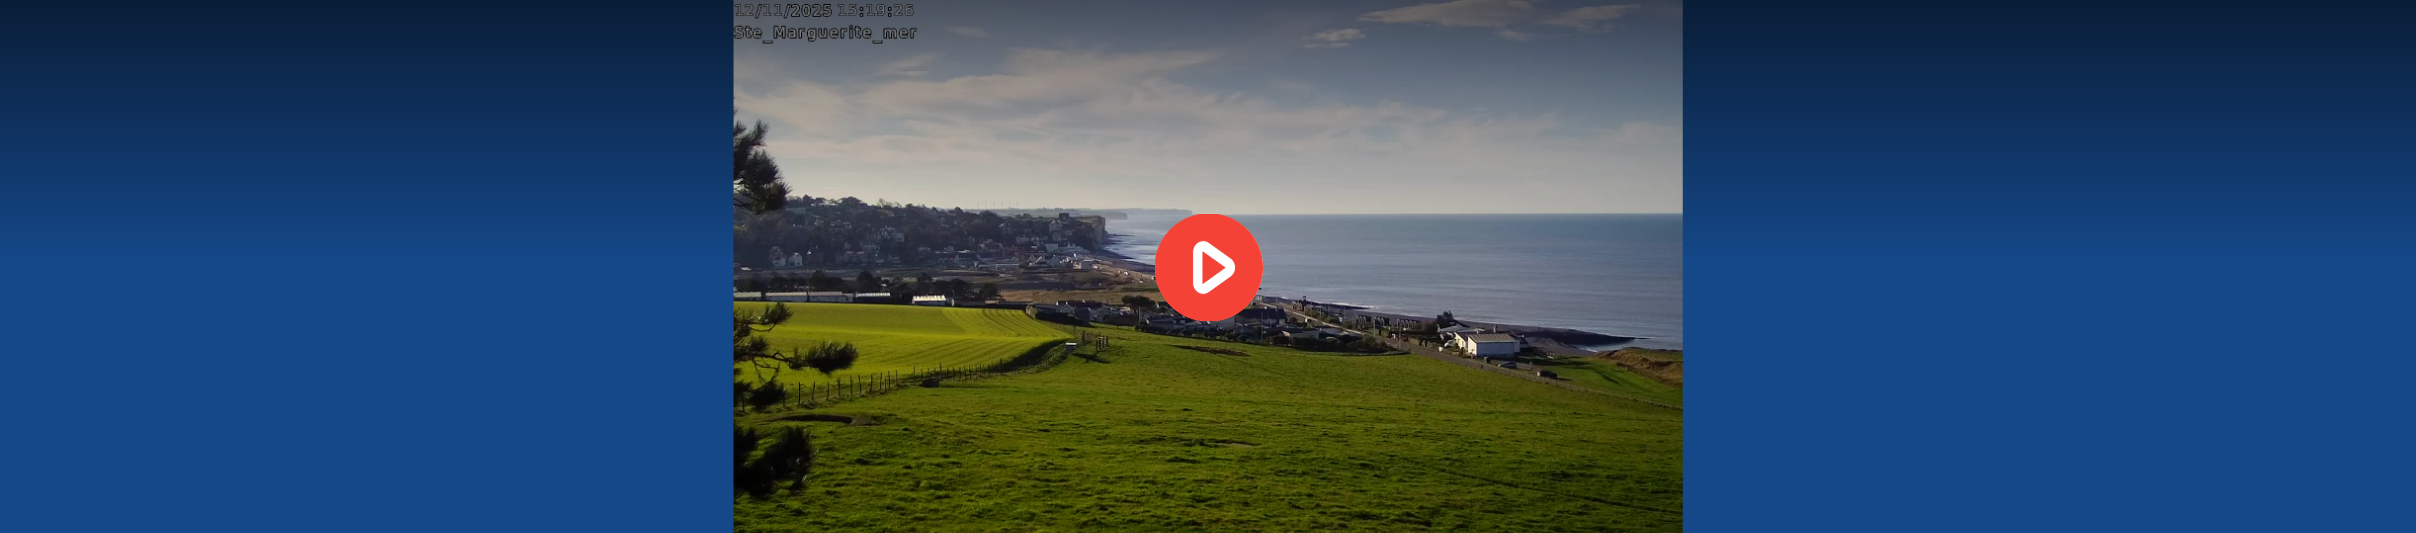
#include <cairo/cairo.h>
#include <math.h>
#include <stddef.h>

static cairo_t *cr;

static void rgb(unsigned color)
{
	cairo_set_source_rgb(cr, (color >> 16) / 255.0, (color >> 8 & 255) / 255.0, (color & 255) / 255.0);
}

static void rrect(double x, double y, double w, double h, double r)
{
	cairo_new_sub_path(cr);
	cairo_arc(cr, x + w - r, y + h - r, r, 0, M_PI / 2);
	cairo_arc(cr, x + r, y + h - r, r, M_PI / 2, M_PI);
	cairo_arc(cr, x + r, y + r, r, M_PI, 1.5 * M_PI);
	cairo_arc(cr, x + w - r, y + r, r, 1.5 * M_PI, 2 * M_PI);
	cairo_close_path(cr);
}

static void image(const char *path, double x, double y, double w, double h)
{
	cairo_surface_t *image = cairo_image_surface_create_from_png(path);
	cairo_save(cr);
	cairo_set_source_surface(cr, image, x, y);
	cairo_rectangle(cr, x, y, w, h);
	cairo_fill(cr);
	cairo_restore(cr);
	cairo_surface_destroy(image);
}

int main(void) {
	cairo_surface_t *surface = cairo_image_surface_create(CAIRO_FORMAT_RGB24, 2416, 533);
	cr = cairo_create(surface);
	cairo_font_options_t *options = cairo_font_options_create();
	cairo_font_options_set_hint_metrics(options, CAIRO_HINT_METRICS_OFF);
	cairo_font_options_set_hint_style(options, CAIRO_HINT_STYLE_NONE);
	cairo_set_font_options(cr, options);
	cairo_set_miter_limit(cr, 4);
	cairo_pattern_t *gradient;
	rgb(0x154889);
	cairo_paint(cr);
	image("img/1.png", 733, 0, 950, 533);
	image("img/2.png", 733, 0, 950, 533);
	gradient = cairo_pattern_create_linear(1208, 265, 1208, 0);
	cairo_pattern_add_color_stop_rgba(gradient, 0, 0, 0, 0, 0);
	cairo_pattern_add_color_stop_rgba(gradient, 1, 0, 0, 0, 0.6);
	cairo_set_source(cr, gradient);
	cairo_pattern_destroy(gradient);
	cairo_rectangle(cr, 0, 0, 2416, 255);
	cairo_fill(cr);
	rgb(0xffffff);
	rrect(1155, 214, 108, 107, 53.5);
	cairo_fill(cr);
	image("img/3.png", 1155, 214, 108, 107);
	cairo_surface_write_to_png(surface, "page.png");
	cairo_font_options_destroy(options);
	cairo_destroy(cr);
	cairo_surface_destroy(surface);
	return 0;
}
